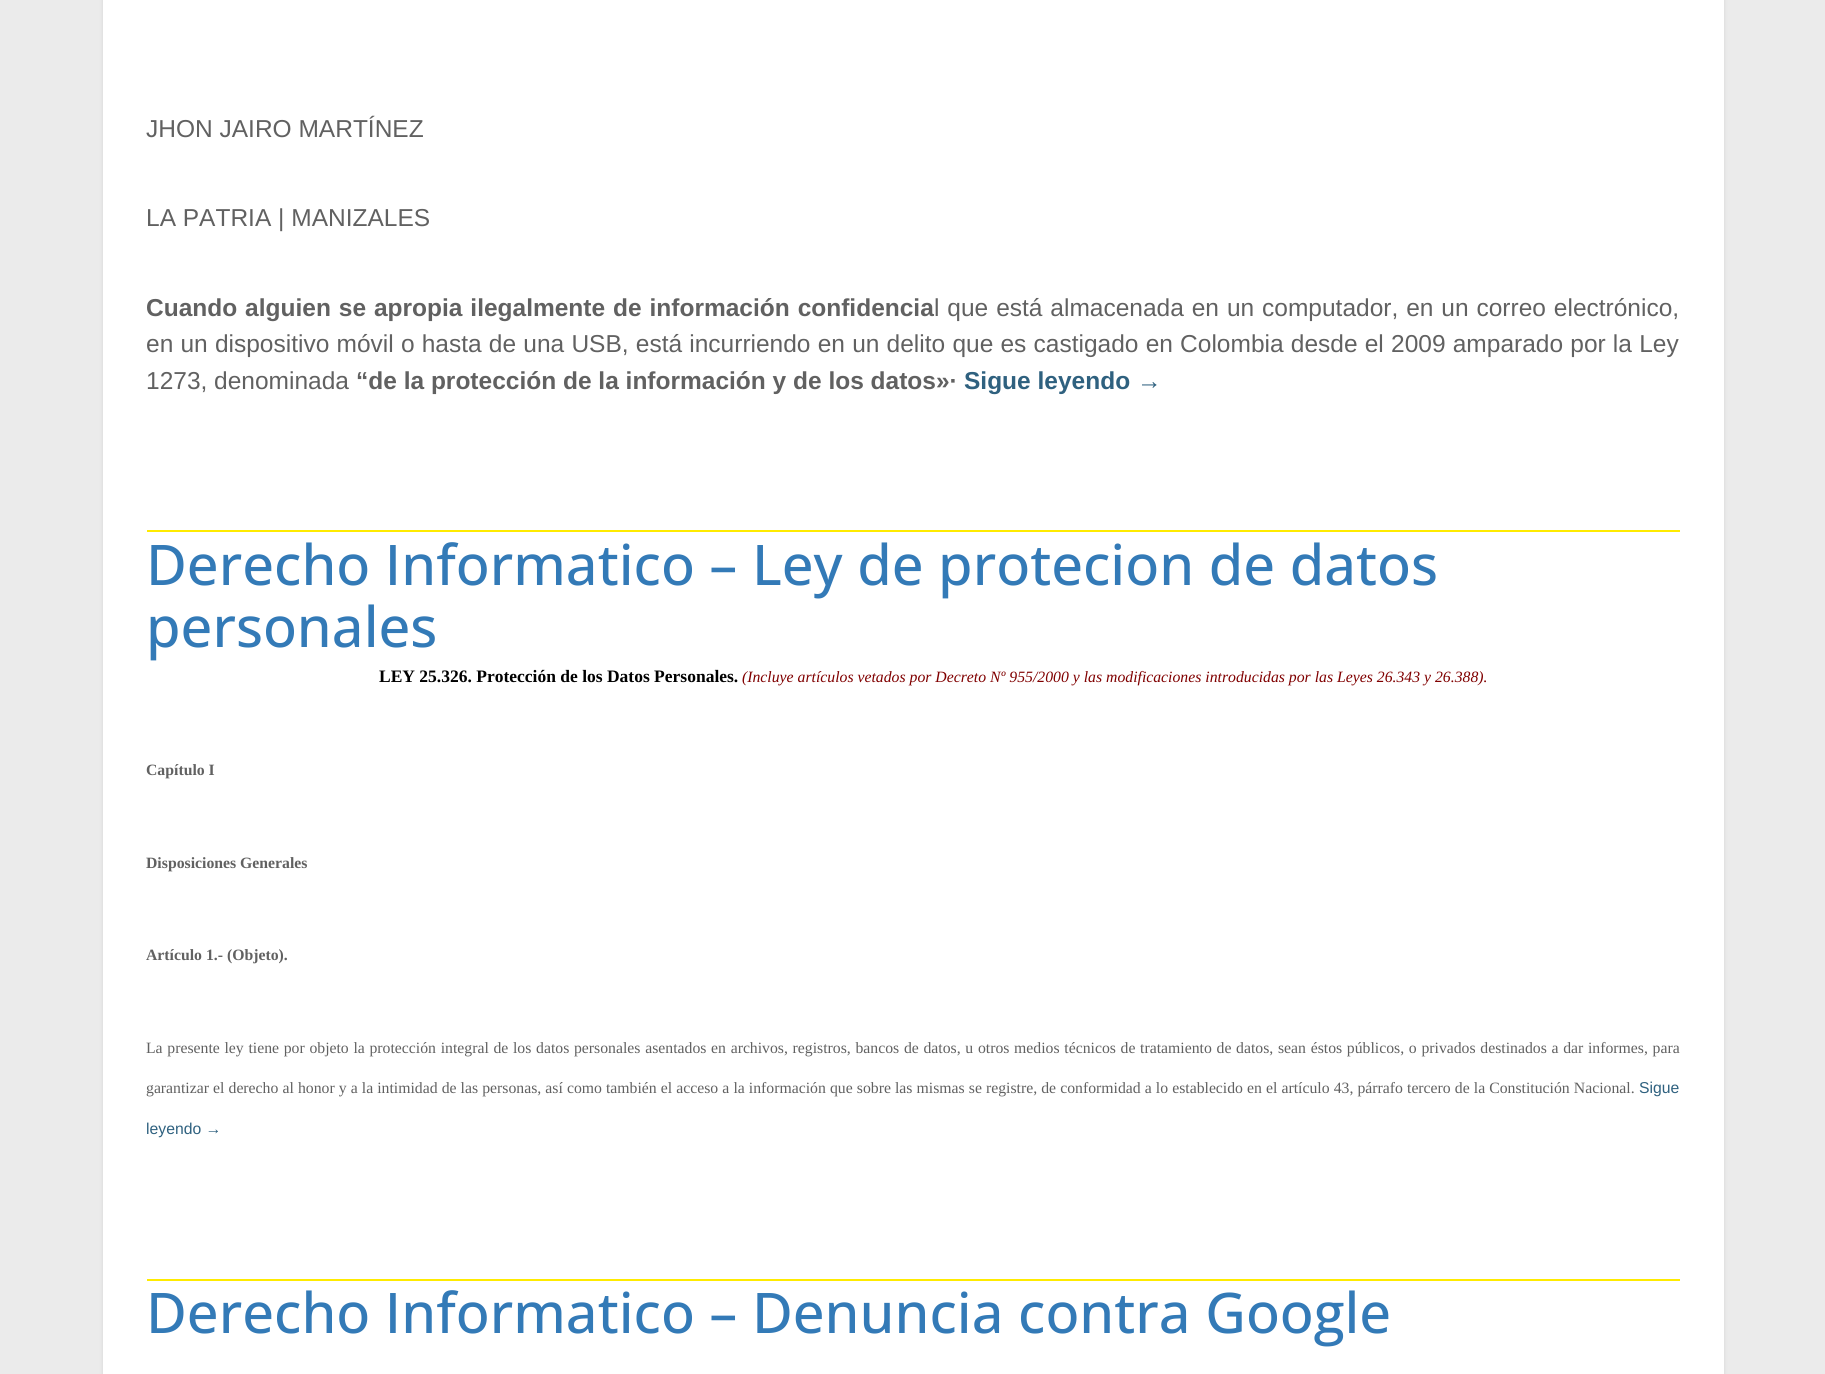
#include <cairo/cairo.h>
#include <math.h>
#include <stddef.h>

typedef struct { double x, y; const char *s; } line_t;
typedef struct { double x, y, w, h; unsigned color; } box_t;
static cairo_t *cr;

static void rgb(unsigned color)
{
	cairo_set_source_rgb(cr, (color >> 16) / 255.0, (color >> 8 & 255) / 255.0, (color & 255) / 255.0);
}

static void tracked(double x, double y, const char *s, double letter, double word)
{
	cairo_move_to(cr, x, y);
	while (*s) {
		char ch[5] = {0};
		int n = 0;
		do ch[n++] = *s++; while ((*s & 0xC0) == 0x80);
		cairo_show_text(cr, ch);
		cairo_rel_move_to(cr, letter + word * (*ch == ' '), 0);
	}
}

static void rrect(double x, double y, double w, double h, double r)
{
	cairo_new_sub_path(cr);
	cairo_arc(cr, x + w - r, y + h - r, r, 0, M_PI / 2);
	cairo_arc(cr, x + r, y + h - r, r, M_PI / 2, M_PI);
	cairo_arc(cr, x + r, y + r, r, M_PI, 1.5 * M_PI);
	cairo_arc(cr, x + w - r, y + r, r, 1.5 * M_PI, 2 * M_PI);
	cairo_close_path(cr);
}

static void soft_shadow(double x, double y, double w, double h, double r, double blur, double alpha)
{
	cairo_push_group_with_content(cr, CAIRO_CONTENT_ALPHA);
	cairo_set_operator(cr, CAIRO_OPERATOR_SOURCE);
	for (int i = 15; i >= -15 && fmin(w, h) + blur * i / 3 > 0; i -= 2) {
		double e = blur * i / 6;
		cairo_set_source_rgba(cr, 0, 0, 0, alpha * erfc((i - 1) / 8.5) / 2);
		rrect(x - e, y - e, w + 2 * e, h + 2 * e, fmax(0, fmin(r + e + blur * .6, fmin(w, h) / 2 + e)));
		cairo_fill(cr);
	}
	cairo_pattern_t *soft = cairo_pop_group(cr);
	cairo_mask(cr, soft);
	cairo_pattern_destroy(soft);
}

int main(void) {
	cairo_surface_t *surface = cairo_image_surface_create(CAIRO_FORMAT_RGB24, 1825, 1374);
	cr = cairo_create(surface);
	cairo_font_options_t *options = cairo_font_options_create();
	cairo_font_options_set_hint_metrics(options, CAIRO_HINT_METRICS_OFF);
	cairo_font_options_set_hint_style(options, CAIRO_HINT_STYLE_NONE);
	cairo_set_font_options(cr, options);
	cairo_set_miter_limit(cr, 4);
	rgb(0xebebeb);
	cairo_paint(cr);
	rgb(0x000000);
	soft_shadow(103, -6, 1621, 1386, 0, 2, 0.1);
	{
		static const box_t items[] = {
			{103, 0, 1621, 1374, 0xffffff},
			{147, 530, 1533, 2, 0xffeb00},
			{147, 1279, 1533, 2, 0xffeb00},
		};
		for (size_t i = 0; i < sizeof items / sizeof *items; i++) {
			rgb(items[i].color);
			cairo_rectangle(cr, items[i].x, items[i].y, items[i].w, items[i].h);
			cairo_fill(cr);
		}
	}
	cairo_select_font_face(cr, "Liberation Sans", CAIRO_FONT_SLANT_NORMAL, CAIRO_FONT_WEIGHT_NORMAL);
	cairo_set_font_size(cr, 24.5);
	rgb(0x616161);
	cairo_move_to(cr, 146, 137);
	cairo_show_text(cr, "JHON JAIRO MARTÍNEZ");
	cairo_move_to(cr, 146, 226);
	cairo_show_text(cr, "LA PATRIA | MANIZALES");
	cairo_select_font_face(cr, "Liberation Sans", CAIRO_FONT_SLANT_NORMAL, CAIRO_FONT_WEIGHT_BOLD);
	tracked(146, 316, "Cuando alguien se apropia ilegalmente de información confidencia", 0, 1.1);
	cairo_select_font_face(cr, "Liberation Sans", CAIRO_FONT_SLANT_NORMAL, CAIRO_FONT_WEIGHT_NORMAL);
	tracked(934, 316, "l que está almacenada en un computador, en un correo electrónico,", 0, 1.1);
	tracked(146, 352, "en un dispositivo móvil o hasta de una USB, está incurriendo en un delito que es castigado en Colombia desde el 2009 amparado por la Ley", 0, 0.4);
	cairo_move_to(cr, 146, 389);
	cairo_show_text(cr, "1273, denominada");
	cairo_select_font_face(cr, "Liberation Sans", CAIRO_FONT_SLANT_NORMAL, CAIRO_FONT_WEIGHT_BOLD);
	cairo_move_to(cr, 356, 389);
	cairo_show_text(cr, "“de la protección de la información y de los datos»·");
	rgb(0x2f617f);
	cairo_move_to(cr, 964, 389);
	cairo_show_text(cr, "Sigue leyendo →");
	cairo_select_font_face(cr, "Open Sans Medium", CAIRO_FONT_SLANT_NORMAL, CAIRO_FONT_WEIGHT_NORMAL);
	cairo_set_font_size(cr, 56);
	rgb(0x337ab7);
	cairo_move_to(cr, 146, 585);
	cairo_show_text(cr, "Derecho Informatico – Ley de protecion de datos");
	cairo_move_to(cr, 146, 647);
	cairo_show_text(cr, "personales");
	cairo_select_font_face(cr, "Liberation Serif", CAIRO_FONT_SLANT_NORMAL, CAIRO_FONT_WEIGHT_BOLD);
	cairo_set_font_size(cr, 17.5);
	rgb(0x000000);
	cairo_move_to(cr, 379, 682);
	cairo_show_text(cr, "LEY 25.326. Protección de los Datos Personales.");
	cairo_select_font_face(cr, "Liberation Serif", CAIRO_FONT_SLANT_ITALIC, CAIRO_FONT_WEIGHT_NORMAL);
	cairo_set_font_size(cr, 15.75);
	rgb(0x800000);
	cairo_move_to(cr, 742, 682);
	cairo_show_text(cr, "(Incluye artículos vetados por Decreto Nº 955/2000 y las modificaciones introducidas por las Leyes 26.343 y 26.388).");
	cairo_select_font_face(cr, "Liberation Serif", CAIRO_FONT_SLANT_NORMAL, CAIRO_FONT_WEIGHT_BOLD);
	rgb(0x616161);
	{
		static const line_t items[] = {
			{146, 775, "Capítulo I"},
			{146, 868, "Disposiciones Generales"},
			{146, 960, "Artículo 1.- (Objeto)."},
		};
		for (size_t i = 0; i < sizeof items / sizeof *items; i++) {
			cairo_move_to(cr, items[i].x, items[i].y);
			cairo_show_text(cr, items[i].s);
		}
	}
	cairo_select_font_face(cr, "Liberation Serif", CAIRO_FONT_SLANT_NORMAL, CAIRO_FONT_WEIGHT_NORMAL);
	tracked(146, 1053, "La presente ley tiene por objeto la protección integral de los datos personales asentados en archivos, registros, bancos de datos, u otros medios técnicos de tratamiento de datos, sean éstos públicos, o privados destinados a dar informes, para", 0, 0.75);
	tracked(146, 1093, "garantizar el derecho al honor y a la intimidad de las personas, así como también el acceso a la información que sobre las mismas se registre, de conformidad a lo establecido en el artículo 43, párrafo tercero de la Constitución Nacional.", 0, 0.15);
	cairo_select_font_face(cr, "Liberation Sans", CAIRO_FONT_SLANT_NORMAL, CAIRO_FONT_WEIGHT_NORMAL);
	rgb(0x2f617f);
	cairo_move_to(cr, 1639, 1093);
	cairo_show_text(cr, "Sigue");
	cairo_move_to(cr, 146, 1134);
	cairo_show_text(cr, "leyendo →");
	cairo_select_font_face(cr, "Open Sans Medium", CAIRO_FONT_SLANT_NORMAL, CAIRO_FONT_WEIGHT_NORMAL);
	cairo_set_font_size(cr, 56);
	rgb(0x337ab7);
	cairo_move_to(cr, 146, 1333);
	cairo_show_text(cr, "Derecho Informatico – Denuncia contra Google");
	cairo_surface_write_to_png(surface, "page.png");
	cairo_font_options_destroy(options);
	cairo_destroy(cr);
	cairo_surface_destroy(surface);
	return 0;
}
